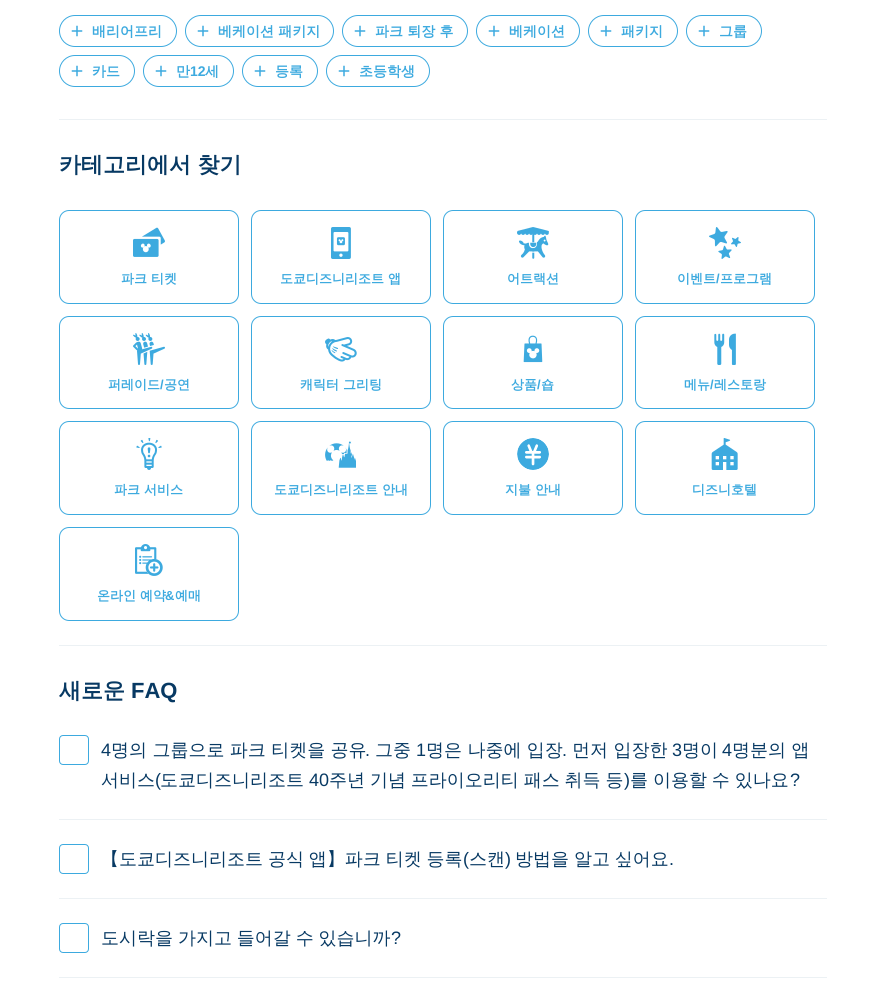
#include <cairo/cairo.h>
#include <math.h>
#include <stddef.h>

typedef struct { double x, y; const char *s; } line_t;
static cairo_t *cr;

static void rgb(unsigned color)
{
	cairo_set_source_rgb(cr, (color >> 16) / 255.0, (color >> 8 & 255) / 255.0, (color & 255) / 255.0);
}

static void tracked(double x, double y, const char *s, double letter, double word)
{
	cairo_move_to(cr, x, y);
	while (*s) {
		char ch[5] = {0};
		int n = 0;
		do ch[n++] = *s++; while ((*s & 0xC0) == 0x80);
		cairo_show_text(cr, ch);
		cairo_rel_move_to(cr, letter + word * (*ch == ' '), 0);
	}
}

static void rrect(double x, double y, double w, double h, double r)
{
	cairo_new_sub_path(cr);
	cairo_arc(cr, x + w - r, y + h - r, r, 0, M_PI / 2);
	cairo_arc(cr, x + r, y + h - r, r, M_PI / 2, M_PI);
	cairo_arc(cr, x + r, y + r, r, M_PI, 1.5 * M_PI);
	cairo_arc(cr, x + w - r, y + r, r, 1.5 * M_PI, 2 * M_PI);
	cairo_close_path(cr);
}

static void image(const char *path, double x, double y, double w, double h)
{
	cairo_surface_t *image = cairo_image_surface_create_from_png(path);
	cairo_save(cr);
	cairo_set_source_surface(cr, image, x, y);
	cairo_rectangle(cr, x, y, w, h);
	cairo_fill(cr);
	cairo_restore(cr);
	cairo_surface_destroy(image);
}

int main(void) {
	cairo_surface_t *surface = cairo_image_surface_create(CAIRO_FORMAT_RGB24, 885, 991);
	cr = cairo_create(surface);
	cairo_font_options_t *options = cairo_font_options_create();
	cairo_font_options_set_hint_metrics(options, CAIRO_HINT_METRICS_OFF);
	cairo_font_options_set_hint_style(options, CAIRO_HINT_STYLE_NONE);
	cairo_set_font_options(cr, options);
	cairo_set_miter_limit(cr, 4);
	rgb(0xffffff);
	cairo_paint(cr);
	rgb(0xecf1f4);
	cairo_rectangle(cr, 59, 119, 768, 1);
	cairo_fill(cr);
	rrect(59.5, 15.5, 117, 31, 15.5);
	rgb(0x3daadf);
	cairo_set_line_width(cr, 1);
	cairo_stroke(cr);
	image("img/1.png", 71, 25, 12, 12);
	rrect(185.5, 15.5, 148, 31, 15.5);
	cairo_stroke(cr);
	image("img/1.png", 197, 25, 12, 12);
	rrect(342.5, 15.5, 125, 31, 15.5);
	cairo_stroke(cr);
	image("img/1.png", 354, 25, 12, 12);
	rrect(476.5, 15.5, 103, 31, 15.5);
	cairo_stroke(cr);
	image("img/1.png", 488, 25, 12, 12);
	rrect(588.5, 15.5, 89, 31, 15.5);
	cairo_stroke(cr);
	image("img/1.png", 600, 25, 12, 12);
	rrect(686.5, 15.5, 75, 31, 15.5);
	cairo_stroke(cr);
	image("img/1.png", 698, 25, 12, 12);
	rrect(59.5, 55.5, 75, 31, 15.5);
	cairo_stroke(cr);
	image("img/1.png", 71, 65, 12, 12);
	rrect(143.5, 55.5, 90, 31, 15.5);
	cairo_stroke(cr);
	image("img/1.png", 155, 65, 12, 12);
	rrect(242.5, 55.5, 75, 31, 15.5);
	cairo_stroke(cr);
	image("img/1.png", 254, 65, 12, 12);
	rrect(326.5, 55.5, 103, 31, 15.5);
	cairo_stroke(cr);
	image("img/1.png", 338, 65, 12, 12);
	rgb(0xecf1f4);
	cairo_rectangle(cr, 59, 645, 768, 1);
	cairo_fill(cr);
	rrect(59.5, 210.5, 179, 93, 9.5);
	rgb(0x3daadf);
	cairo_stroke(cr);
	image("img/2.png", 133, 227, 32, 30);
	rrect(251.5, 210.5, 179, 93, 9.5);
	cairo_stroke(cr);
	image("img/3.png", 331, 227, 20, 32);
	rrect(443.5, 210.5, 179, 93, 9.5);
	cairo_stroke(cr);
	image("img/4.png", 517, 227, 32, 32);
	rrect(635.5, 210.5, 179, 93, 9.5);
	cairo_stroke(cr);
	image("img/5.png", 709, 227, 32, 32);
	rrect(59.5, 316.5, 179, 92, 9.5);
	cairo_stroke(cr);
	image("img/6.png", 133, 333, 32, 32);
	rrect(251.5, 316.5, 179, 92, 9.5);
	cairo_stroke(cr);
	image("img/7.png", 325, 337, 32, 25);
	rrect(443.5, 316.5, 179, 92, 9.5);
	cairo_stroke(cr);
	image("img/8.png", 523, 335, 20, 28);
	rrect(635.5, 316.5, 179, 92, 9.5);
	cairo_stroke(cr);
	image("img/9.png", 714, 333, 22, 32);
	rrect(59.5, 421.5, 179, 93, 9.5);
	cairo_stroke(cr);
	image("img/10.png", 136, 438, 26, 32);
	rrect(251.5, 421.5, 179, 93, 9.5);
	cairo_stroke(cr);
	image("img/11.png", 325, 441, 31, 27);
	rrect(443.5, 421.5, 179, 93, 9.5);
	cairo_stroke(cr);
	image("img/12.png", 517, 438, 32, 32);
	rrect(635.5, 421.5, 179, 93, 9.5);
	cairo_stroke(cr);
	image("img/13.png", 711, 438, 27, 32);
	rrect(59.5, 527.5, 179, 93, 9.5);
	cairo_stroke(cr);
	image("img/14.png", 135, 544, 28, 32);
	rgb(0xecf1f4);
	cairo_rectangle(cr, 59, 819, 768, 1);
	cairo_fill(cr);
	rrect(59.5, 735.5, 29, 29, 3.5);
	rgb(0x3daadf);
	cairo_stroke(cr);
	rgb(0xecf1f4);
	cairo_rectangle(cr, 59, 898, 768, 1);
	cairo_fill(cr);
	rrect(59.5, 844.5, 29, 29, 3.5);
	rgb(0x3daadf);
	cairo_stroke(cr);
	rgb(0xecf1f4);
	cairo_rectangle(cr, 59, 977, 768, 1);
	cairo_fill(cr);
	rrect(59.5, 923.5, 29, 29, 3.5);
	rgb(0x3daadf);
	cairo_stroke(cr);
	cairo_select_font_face(cr, "WenQuanYi Zen Hei", CAIRO_FONT_SLANT_NORMAL, CAIRO_FONT_WEIGHT_BOLD);
	cairo_set_font_size(cr, 14);
	{
		static const line_t items[] = {
			{92, 36, "배리어프리"},
			{218, 36, "베케이션 패키지"},
			{375, 36, "파크 퇴장 후"},
			{509, 36, "베케이션"},
			{621, 36, "패키지"},
			{719, 36, "그룹"},
			{92, 76, "카드"},
			{176, 76, "만"},
		};
		for (size_t i = 0; i < sizeof items / sizeof *items; i++) {
			cairo_move_to(cr, items[i].x, items[i].y);
			cairo_show_text(cr, items[i].s);
		}
	}
	cairo_select_font_face(cr, "Liberation Sans", CAIRO_FONT_SLANT_NORMAL, CAIRO_FONT_WEIGHT_BOLD);
	cairo_move_to(cr, 190, 76);
	cairo_show_text(cr, "12");
	cairo_select_font_face(cr, "WenQuanYi Zen Hei", CAIRO_FONT_SLANT_NORMAL, CAIRO_FONT_WEIGHT_BOLD);
	{
		static const line_t items[] = {
			{205, 76, "세"},
			{275, 76, "등록"},
			{359, 76, "초등학생"},
		};
		for (size_t i = 0; i < sizeof items / sizeof *items; i++) {
			cairo_move_to(cr, items[i].x, items[i].y);
			cairo_show_text(cr, items[i].s);
		}
	}
	cairo_set_font_size(cr, 22);
	rgb(0x073963);
	cairo_move_to(cr, 59, 172);
	cairo_show_text(cr, "카테고리에서 찾기");
	cairo_set_font_size(cr, 13);
	rgb(0x3daadf);
	{
		static const line_t items[] = {
			{121, 283, "파크 티켓"},
			{280, 283, "도쿄디즈니리조트 앱"},
			{507, 283, "어트랙션"},
			{677, 283, "이벤트 프로그램"},
		};
		for (size_t i = 0; i < sizeof items / sizeof *items; i++) {
			cairo_move_to(cr, items[i].x, items[i].y);
			cairo_show_text(cr, items[i].s);
		}
	}
	cairo_select_font_face(cr, "Liberation Sans", CAIRO_FONT_SLANT_NORMAL, CAIRO_FONT_WEIGHT_BOLD);
	cairo_move_to(cr, 716, 283);
	cairo_show_text(cr, "/");
	cairo_select_font_face(cr, "WenQuanYi Zen Hei", CAIRO_FONT_SLANT_NORMAL, CAIRO_FONT_WEIGHT_BOLD);
	cairo_move_to(cr, 108, 389);
	cairo_show_text(cr, "퍼레이드 공연");
	cairo_select_font_face(cr, "Liberation Sans", CAIRO_FONT_SLANT_NORMAL, CAIRO_FONT_WEIGHT_BOLD);
	cairo_move_to(cr, 160, 389);
	cairo_show_text(cr, "/");
	cairo_select_font_face(cr, "WenQuanYi Zen Hei", CAIRO_FONT_SLANT_NORMAL, CAIRO_FONT_WEIGHT_BOLD);
	cairo_move_to(cr, 300, 389);
	cairo_show_text(cr, "캐릭터 그리팅");
	cairo_move_to(cr, 511, 389);
	cairo_show_text(cr, "상품 숍");
	cairo_select_font_face(cr, "Liberation Sans", CAIRO_FONT_SLANT_NORMAL, CAIRO_FONT_WEIGHT_BOLD);
	cairo_move_to(cr, 537, 389);
	cairo_show_text(cr, "/");
	cairo_select_font_face(cr, "WenQuanYi Zen Hei", CAIRO_FONT_SLANT_NORMAL, CAIRO_FONT_WEIGHT_BOLD);
	cairo_move_to(cr, 684, 389);
	cairo_show_text(cr, "메뉴 레스토랑");
	cairo_select_font_face(cr, "Liberation Sans", CAIRO_FONT_SLANT_NORMAL, CAIRO_FONT_WEIGHT_BOLD);
	cairo_move_to(cr, 710, 389);
	cairo_show_text(cr, "/");
	cairo_select_font_face(cr, "WenQuanYi Zen Hei", CAIRO_FONT_SLANT_NORMAL, CAIRO_FONT_WEIGHT_BOLD);
	{
		static const line_t items[] = {
			{114, 494, "파크 서비스"},
			{274, 494, "도쿄디즈니리조트 안내"},
			{505, 494, "지불 안내"},
			{692, 494, "디즈니호텔"},
			{97, 600, "온라인 예약"},
		};
		for (size_t i = 0; i < sizeof items / sizeof *items; i++) {
			cairo_move_to(cr, items[i].x, items[i].y);
			cairo_show_text(cr, items[i].s);
		}
	}
	cairo_select_font_face(cr, "Liberation Sans", CAIRO_FONT_SLANT_NORMAL, CAIRO_FONT_WEIGHT_BOLD);
	cairo_move_to(cr, 165, 600);
	cairo_show_text(cr, "&");
	cairo_select_font_face(cr, "WenQuanYi Zen Hei", CAIRO_FONT_SLANT_NORMAL, CAIRO_FONT_WEIGHT_BOLD);
	cairo_move_to(cr, 175, 600);
	cairo_show_text(cr, "예매");
	cairo_set_font_size(cr, 22);
	rgb(0x073963);
	cairo_move_to(cr, 59, 698);
	cairo_show_text(cr, "새로운");
	cairo_select_font_face(cr, "Liberation Sans", CAIRO_FONT_SLANT_NORMAL, CAIRO_FONT_WEIGHT_BOLD);
	cairo_move_to(cr, 131, 698);
	cairo_show_text(cr, "FAQ");
	cairo_select_font_face(cr, "Liberation Sans", CAIRO_FONT_SLANT_NORMAL, CAIRO_FONT_WEIGHT_NORMAL);
	cairo_set_font_size(cr, 18);
	cairo_move_to(cr, 101, 756);
	cairo_show_text(cr, "4");
	cairo_select_font_face(cr, "WenQuanYi Zen Hei Medium", CAIRO_FONT_SLANT_NORMAL, CAIRO_FONT_WEIGHT_NORMAL);
	cairo_move_to(cr, 111, 756);
	cairo_show_text(cr, "명의 그룹으로 파크 티켓을 공유");
	cairo_select_font_face(cr, "Liberation Sans", CAIRO_FONT_SLANT_NORMAL, CAIRO_FONT_WEIGHT_NORMAL);
	cairo_move_to(cr, 365, 756);
	cairo_show_text(cr, ".");
	cairo_select_font_face(cr, "WenQuanYi Zen Hei Medium", CAIRO_FONT_SLANT_NORMAL, CAIRO_FONT_WEIGHT_NORMAL);
	cairo_move_to(cr, 375, 756);
	cairo_show_text(cr, "그중");
	cairo_select_font_face(cr, "Liberation Sans", CAIRO_FONT_SLANT_NORMAL, CAIRO_FONT_WEIGHT_NORMAL);
	cairo_move_to(cr, 416, 756);
	cairo_show_text(cr, "1");
	cairo_select_font_face(cr, "WenQuanYi Zen Hei Medium", CAIRO_FONT_SLANT_NORMAL, CAIRO_FONT_WEIGHT_NORMAL);
	cairo_move_to(cr, 426, 756);
	cairo_show_text(cr, "명은 나중에 입장");
	cairo_select_font_face(cr, "Liberation Sans", CAIRO_FONT_SLANT_NORMAL, CAIRO_FONT_WEIGHT_NORMAL);
	cairo_move_to(cr, 562, 756);
	cairo_show_text(cr, ".");
	cairo_select_font_face(cr, "WenQuanYi Zen Hei Medium", CAIRO_FONT_SLANT_NORMAL, CAIRO_FONT_WEIGHT_NORMAL);
	cairo_move_to(cr, 572, 756);
	cairo_show_text(cr, "먼저 입장한");
	cairo_select_font_face(cr, "Liberation Sans", CAIRO_FONT_SLANT_NORMAL, CAIRO_FONT_WEIGHT_NORMAL);
	cairo_move_to(cr, 672, 756);
	cairo_show_text(cr, "3");
	cairo_select_font_face(cr, "WenQuanYi Zen Hei Medium", CAIRO_FONT_SLANT_NORMAL, CAIRO_FONT_WEIGHT_NORMAL);
	cairo_move_to(cr, 682, 756);
	cairo_show_text(cr, "명이");
	cairo_select_font_face(cr, "Liberation Sans", CAIRO_FONT_SLANT_NORMAL, CAIRO_FONT_WEIGHT_NORMAL);
	cairo_move_to(cr, 722, 756);
	cairo_show_text(cr, "4");
	cairo_select_font_face(cr, "WenQuanYi Zen Hei Medium", CAIRO_FONT_SLANT_NORMAL, CAIRO_FONT_WEIGHT_NORMAL);
	cairo_move_to(cr, 732, 756);
	cairo_show_text(cr, "명분의 앱");
	cairo_move_to(cr, 101, 786);
	cairo_show_text(cr, "서비스");
	cairo_select_font_face(cr, "Liberation Sans", CAIRO_FONT_SLANT_NORMAL, CAIRO_FONT_WEIGHT_NORMAL);
	cairo_move_to(cr, 155, 786);
	cairo_show_text(cr, "(");
	cairo_select_font_face(cr, "WenQuanYi Zen Hei Medium", CAIRO_FONT_SLANT_NORMAL, CAIRO_FONT_WEIGHT_NORMAL);
	cairo_move_to(cr, 160, 786);
	cairo_show_text(cr, "도쿄디즈니리조트");
	cairo_select_font_face(cr, "Liberation Sans", CAIRO_FONT_SLANT_NORMAL, CAIRO_FONT_WEIGHT_NORMAL);
	cairo_move_to(cr, 309, 786);
	cairo_show_text(cr, "40");
	cairo_select_font_face(cr, "WenQuanYi Zen Hei Medium", CAIRO_FONT_SLANT_NORMAL, CAIRO_FONT_WEIGHT_NORMAL);
	tracked(329, 786, "주년 기념 프라이오리티 패스 취득 등", 0, -0.5);
	cairo_select_font_face(cr, "Liberation Sans", CAIRO_FONT_SLANT_NORMAL, CAIRO_FONT_WEIGHT_NORMAL);
	cairo_move_to(cr, 624, 786);
	cairo_show_text(cr, ")");
	cairo_select_font_face(cr, "WenQuanYi Zen Hei Medium", CAIRO_FONT_SLANT_NORMAL, CAIRO_FONT_WEIGHT_NORMAL);
	tracked(630, 786, "를 이용할 수 있나요", 0, -0.5);
	cairo_select_font_face(cr, "Liberation Sans", CAIRO_FONT_SLANT_NORMAL, CAIRO_FONT_WEIGHT_NORMAL);
	cairo_move_to(cr, 790, 786);
	cairo_show_text(cr, "?");
	cairo_select_font_face(cr, "WenQuanYi Zen Hei Medium", CAIRO_FONT_SLANT_NORMAL, CAIRO_FONT_WEIGHT_NORMAL);
	tracked(101, 865, "【도쿄디즈니리조트 공식 앱】파크 티켓 등록", 0, -0.5);
	cairo_select_font_face(cr, "Liberation Sans", CAIRO_FONT_SLANT_NORMAL, CAIRO_FONT_WEIGHT_NORMAL);
	cairo_move_to(cr, 463, 865);
	cairo_show_text(cr, "(");
	cairo_select_font_face(cr, "WenQuanYi Zen Hei Medium", CAIRO_FONT_SLANT_NORMAL, CAIRO_FONT_WEIGHT_NORMAL);
	cairo_move_to(cr, 469, 865);
	cairo_show_text(cr, "스캔");
	cairo_select_font_face(cr, "Liberation Sans", CAIRO_FONT_SLANT_NORMAL, CAIRO_FONT_WEIGHT_NORMAL);
	cairo_move_to(cr, 505, 865);
	cairo_show_text(cr, ")");
	cairo_select_font_face(cr, "WenQuanYi Zen Hei Medium", CAIRO_FONT_SLANT_NORMAL, CAIRO_FONT_WEIGHT_NORMAL);
	tracked(515, 865, "방법을 알고 싶어요", 0, -0.5);
	cairo_select_font_face(cr, "Liberation Sans", CAIRO_FONT_SLANT_NORMAL, CAIRO_FONT_WEIGHT_NORMAL);
	cairo_move_to(cr, 669, 865);
	cairo_show_text(cr, ".");
	cairo_select_font_face(cr, "WenQuanYi Zen Hei Medium", CAIRO_FONT_SLANT_NORMAL, CAIRO_FONT_WEIGHT_NORMAL);
	tracked(101, 944, "도시락을 가지고 들어갈 수 있습니까", 0, -0.5);
	cairo_select_font_face(cr, "Liberation Sans", CAIRO_FONT_SLANT_NORMAL, CAIRO_FONT_WEIGHT_NORMAL);
	cairo_move_to(cr, 391, 944);
	cairo_show_text(cr, "?");
	cairo_surface_write_to_png(surface, "page.png");
	cairo_font_options_destroy(options);
	cairo_destroy(cr);
	cairo_surface_destroy(surface);
	return 0;
}
